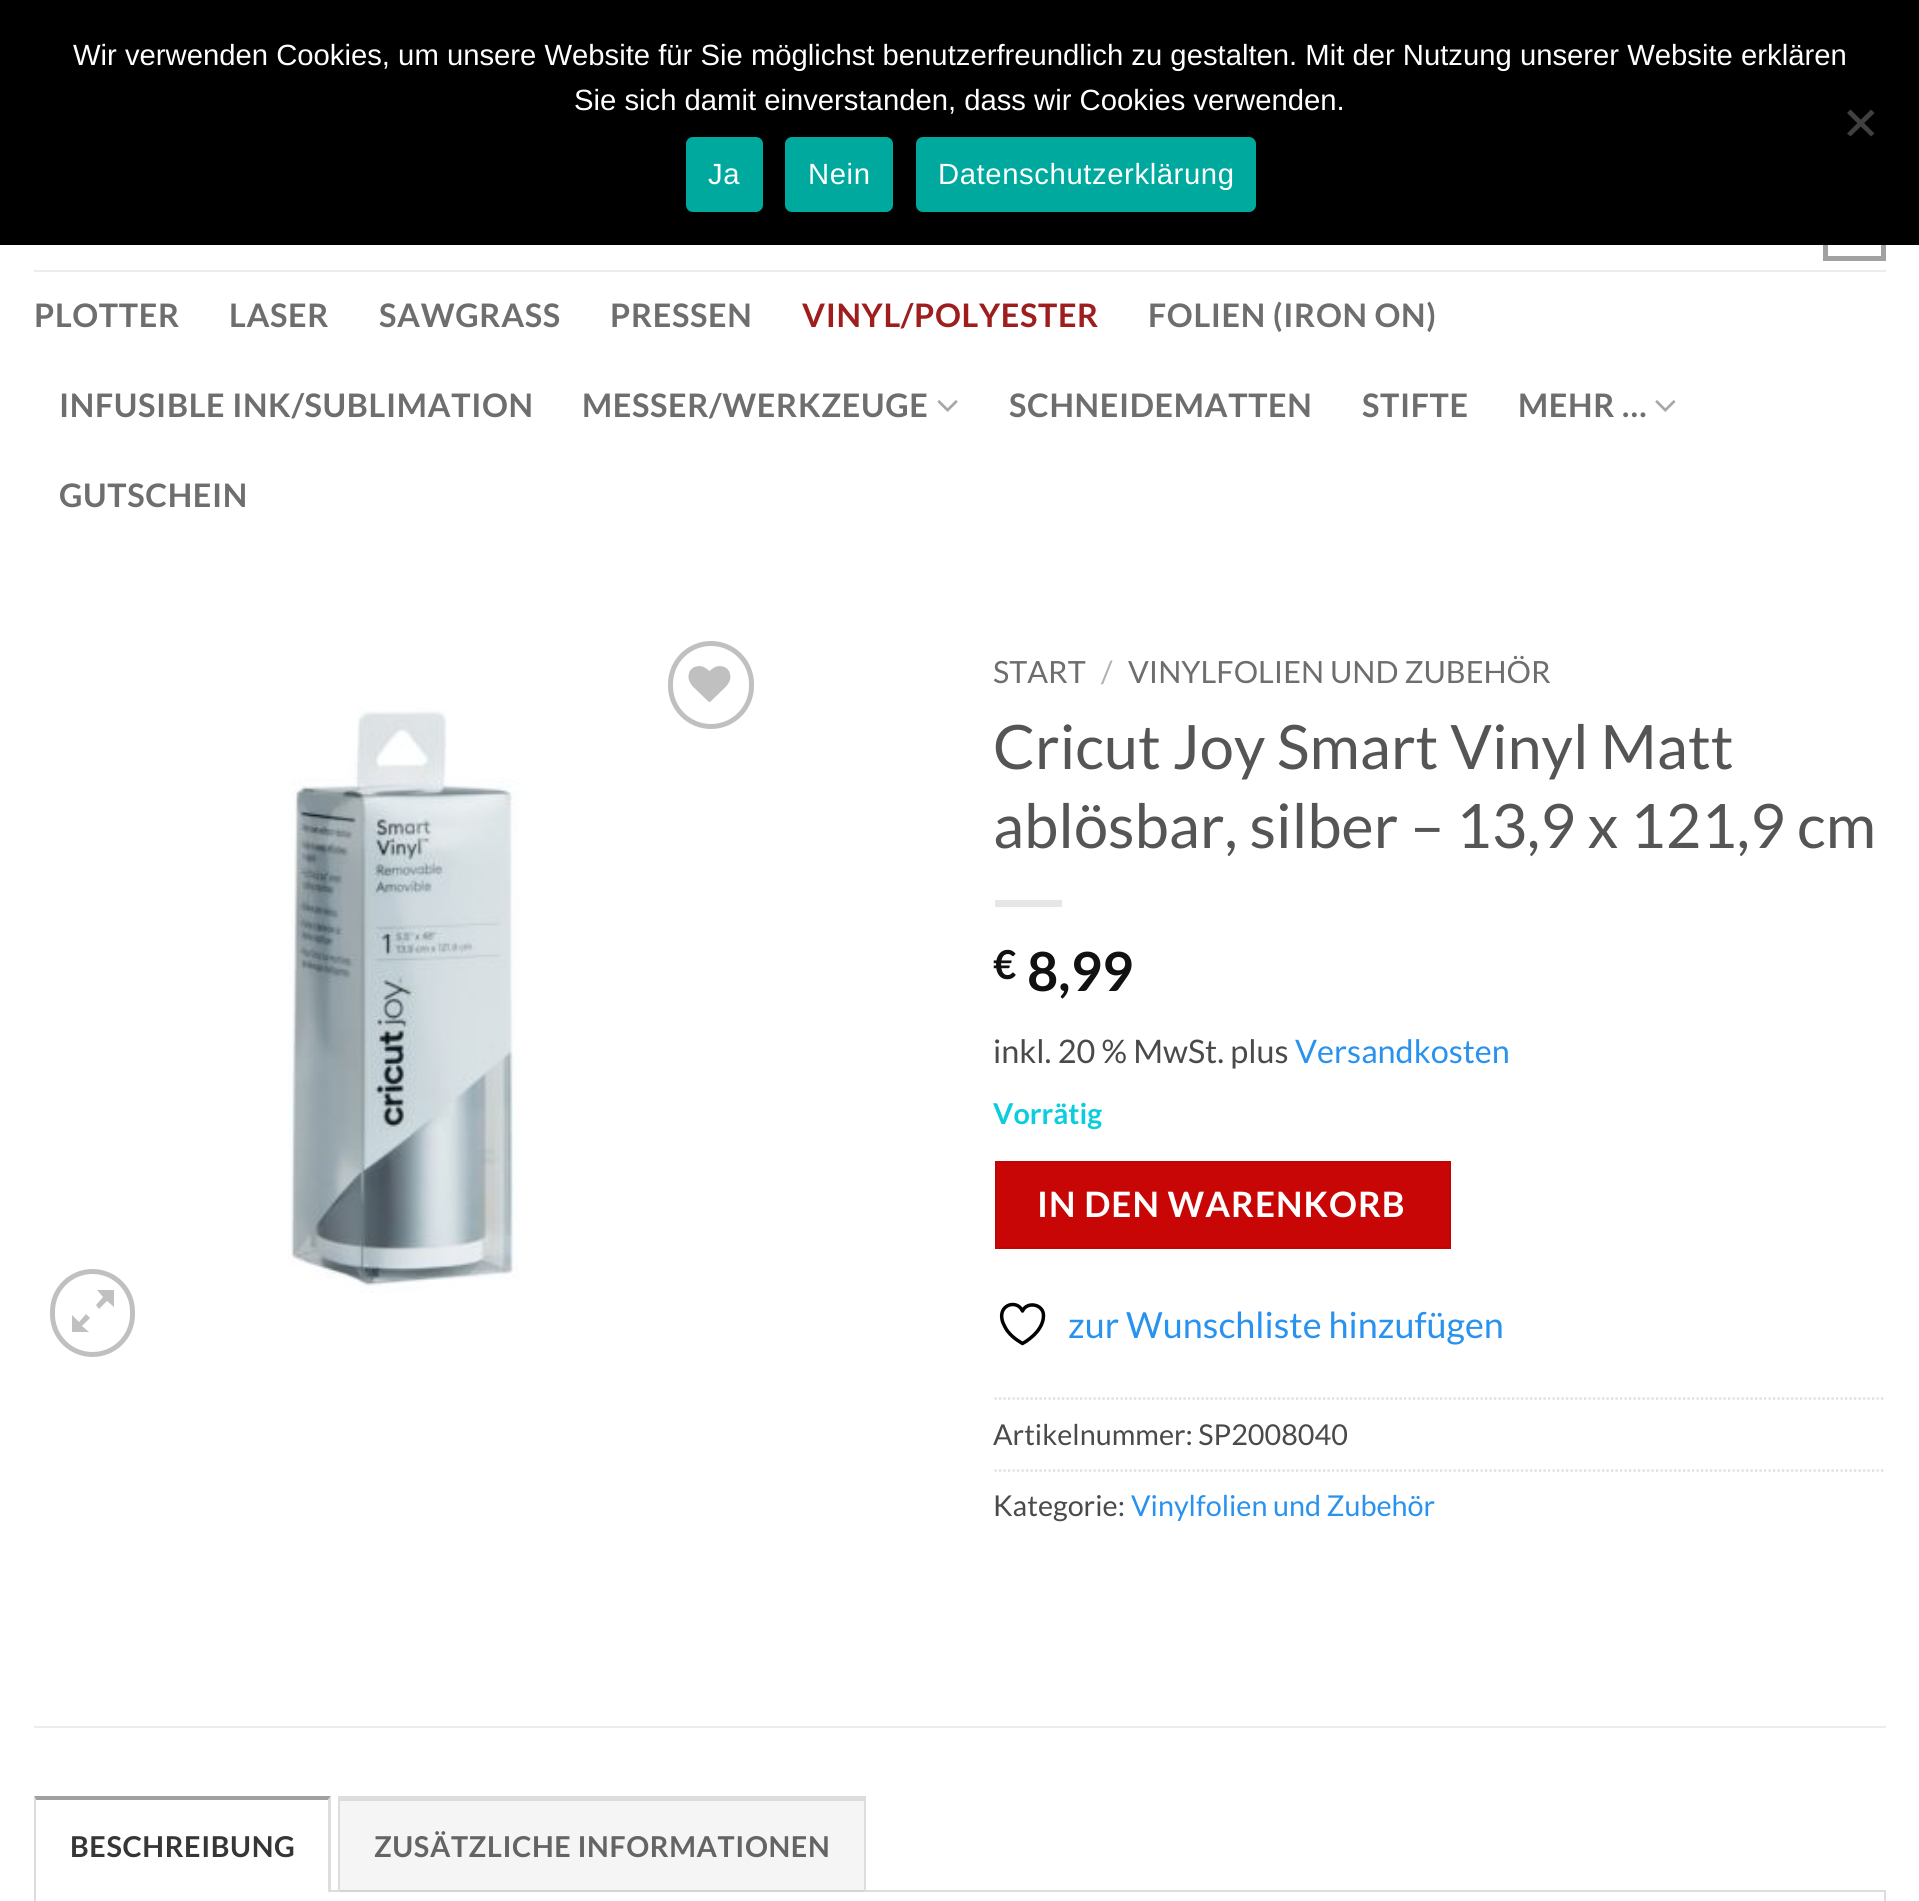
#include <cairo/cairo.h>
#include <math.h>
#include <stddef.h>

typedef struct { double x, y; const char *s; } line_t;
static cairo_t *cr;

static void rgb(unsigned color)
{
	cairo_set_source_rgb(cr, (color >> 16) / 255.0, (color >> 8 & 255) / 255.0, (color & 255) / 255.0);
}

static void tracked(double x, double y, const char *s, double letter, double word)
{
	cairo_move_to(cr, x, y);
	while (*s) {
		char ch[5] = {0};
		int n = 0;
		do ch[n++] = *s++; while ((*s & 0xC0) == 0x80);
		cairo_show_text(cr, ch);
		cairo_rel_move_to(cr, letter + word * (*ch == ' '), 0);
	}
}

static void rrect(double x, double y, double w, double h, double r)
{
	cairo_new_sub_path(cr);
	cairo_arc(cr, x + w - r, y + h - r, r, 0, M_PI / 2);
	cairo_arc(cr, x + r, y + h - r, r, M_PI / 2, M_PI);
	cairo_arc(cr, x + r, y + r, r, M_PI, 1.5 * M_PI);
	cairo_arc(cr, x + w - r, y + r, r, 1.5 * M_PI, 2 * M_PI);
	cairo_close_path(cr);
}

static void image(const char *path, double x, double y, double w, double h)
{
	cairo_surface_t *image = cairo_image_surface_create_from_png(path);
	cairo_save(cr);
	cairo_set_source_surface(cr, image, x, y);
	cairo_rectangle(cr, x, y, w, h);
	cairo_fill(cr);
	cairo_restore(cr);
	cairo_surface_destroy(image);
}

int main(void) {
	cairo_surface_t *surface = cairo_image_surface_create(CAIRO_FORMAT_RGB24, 1919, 1901);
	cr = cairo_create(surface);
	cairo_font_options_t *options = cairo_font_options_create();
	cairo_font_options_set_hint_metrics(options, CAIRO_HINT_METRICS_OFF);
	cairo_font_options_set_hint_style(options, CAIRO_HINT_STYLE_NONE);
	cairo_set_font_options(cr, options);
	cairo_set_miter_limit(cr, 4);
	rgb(0xffffff);
	cairo_paint(cr);
	cairo_rectangle(cr, 1825.5, 200.5, 58, 58);
	rgb(0xa1a1a1);
	cairo_set_line_width(cr, 5);
	cairo_stroke(cr);
	rgb(0x000000);
	cairo_rectangle(cr, 0, 0, 1919, 245);
	cairo_fill(cr);
	rgb(0x404040);
	cairo_new_path(cr);
	cairo_move_to(cr, 1871, 109.5);
	cairo_line_to(cr, 1874.5, 113);
	cairo_line_to(cr, 1850.5, 136.5);
	cairo_line_to(cr, 1847, 133.5);
	cairo_close_path(cr);
	cairo_fill(cr);
	cairo_new_path(cr);
	cairo_move_to(cr, 1847, 113);
	cairo_line_to(cr, 1850.5, 109.5);
	cairo_line_to(cr, 1874.5, 133.5);
	cairo_line_to(cr, 1871, 136.5);
	cairo_close_path(cr);
	cairo_fill(cr);
	rgb(0x00a99d);
	rrect(686, 137, 77, 75, 7);
	cairo_fill(cr);
	rrect(785, 137, 108, 75, 7);
	cairo_fill(cr);
	rrect(916, 137, 340, 75, 7);
	cairo_fill(cr);
	rgb(0xededed);
	cairo_rectangle(cr, 34, 270, 1852, 2);
	cairo_fill(cr);
	image("img/1.png", 937, 400, 21, 12);
	image("img/2.png", 1655, 400, 21, 12);
	rrect(670.5, 643.5, 81, 83, 40.5);
	rgb(0xc0c0c0);
	cairo_stroke(cr);
	image("img/3.png", 688, 666, 43, 36);
	image("img/4.png", 288, 708, 232, 585);
	rrect(52.5, 1271.5, 80, 83, 40);
	cairo_stroke(cr);
	cairo_new_path(cr);
	cairo_move_to(cr, 114, 1290);
	cairo_line_to(cr, 114, 1307);
	cairo_line_to(cr, 107, 1301);
	cairo_line_to(cr, 99, 1309);
	cairo_line_to(cr, 96, 1305);
	cairo_line_to(cr, 103, 1297);
	cairo_line_to(cr, 97, 1290);
	cairo_close_path(cr);
	cairo_move_to(cr, 90, 1318);
	cairo_line_to(cr, 82, 1326);
	cairo_line_to(cr, 89, 1332);
	cairo_line_to(cr, 72, 1332);
	cairo_line_to(cr, 72, 1315);
	cairo_line_to(cr, 79, 1322);
	cairo_line_to(cr, 86, 1314);
	cairo_close_path(cr);
	cairo_fill(cr);
	rgb(0xe6e6e6);
	cairo_rectangle(cr, 995, 900, 67, 7);
	cairo_fill(cr);
	rgb(0xc90606);
	cairo_rectangle(cr, 996, 1162, 454, 86);
	cairo_fill_preserve(cr);
	rgb(0xbf0606);
	cairo_set_line_width(cr, 2);
	cairo_stroke(cr);
	cairo_new_path(cr);
	cairo_move_to(cr, 1043.5, 1315.5);
	cairo_curve_to(cr, 1043.5, 1304, 1027, 1301, 1022.5, 1311);
	cairo_curve_to(cr, 1016.5, 1297.5, 993, 1306, 1005, 1327);
	cairo_curve_to(cr, 1008.5, 1334, 1015.5, 1339.5, 1022.5, 1343.5);
	cairo_curve_to(cr, 1022.5, 1343.5, 1043.5, 1332.5, 1043.5, 1315.5);
	cairo_close_path(cr);
	rgb(0x000000);
	cairo_set_line_width(cr, 3.5);
	cairo_set_line_cap(cr, CAIRO_LINE_CAP_ROUND);
	cairo_set_line_join(cr, CAIRO_LINE_JOIN_ROUND);
	cairo_stroke(cr);
	cairo_new_path(cr);
	cairo_move_to(cr, 994.5, 1398.5);
	cairo_line_to(cr, 1885.5, 1398.5);
	rgb(0xdddddd);
	cairo_set_line_width(cr, 2.2);
	cairo_set_line_cap(cr, CAIRO_LINE_CAP_BUTT);
	cairo_set_line_join(cr, CAIRO_LINE_JOIN_MITER);
	cairo_set_dash(cr, (double[]){2.25, 2.25}, 2, 0);
	cairo_stroke(cr);
	cairo_new_path(cr);
	cairo_move_to(cr, 994.5, 1470.5);
	cairo_line_to(cr, 1885.5, 1470.5);
	cairo_stroke(cr);
	rgb(0xececec);
	cairo_rectangle(cr, 34, 1726, 1852, 2);
	cairo_fill(cr);
	cairo_rectangle(cr, 35, 1891, 1850, 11);
	rgb(0xdddddd);
	cairo_set_line_width(cr, 2);
	cairo_set_dash(cr, NULL, 0, 0);
	cairo_stroke(cr);
	rgb(0xffffff);
	cairo_rectangle(cr, 34, 1890, 297, 2);
	cairo_fill(cr);
	rgb(0xa1a1a1);
	cairo_new_path(cr);
	cairo_move_to(cr, 34, 1796);
	cairo_line_to(cr, 331, 1796);
	cairo_line_to(cr, 328, 1800);
	cairo_line_to(cr, 36, 1800);
	cairo_close_path(cr);
	cairo_fill(cr);
	rgb(0xdddddd);
	cairo_new_path(cr);
	cairo_move_to(cr, 331, 1796);
	cairo_line_to(cr, 331, 1892);
	cairo_line_to(cr, 328, 1892);
	cairo_line_to(cr, 328, 1800);
	cairo_close_path(cr);
	cairo_fill(cr);
	cairo_new_path(cr);
	cairo_move_to(cr, 34, 1892);
	cairo_line_to(cr, 34, 1796);
	cairo_line_to(cr, 36, 1800);
	cairo_line_to(cr, 36, 1892);
	cairo_close_path(cr);
	cairo_fill(cr);
	cairo_set_source_rgba(cr, 0, 0, 0, 0.04);
	cairo_rectangle(cr, 340, 1801, 524, 91);
	cairo_fill(cr);
	rgb(0xdddddd);
	cairo_rectangle(cr, 338, 1796, 528, 5);
	cairo_fill(cr);
	cairo_rectangle(cr, 864, 1796, 2, 96);
	cairo_fill(cr);
	cairo_rectangle(cr, 338, 1796, 2, 96);
	cairo_fill(cr);
	cairo_select_font_face(cr, "Liberation Sans", CAIRO_FONT_SLANT_NORMAL, CAIRO_FONT_WEIGHT_NORMAL);
	cairo_set_font_size(cr, 29.25);
	rgb(0xffffff);
	cairo_move_to(cr, 73, 65);
	cairo_show_text(cr, "Wir verwenden Cookies, um unsere Website für Sie möglichst benutzerfreundlich zu gestalten. Mit der Nutzung unserer Website erklären");
	cairo_move_to(cr, 574, 110);
	cairo_show_text(cr, "Sie sich damit einverstanden, dass wir Cookies verwenden.");
	{
		static const line_t items[] = {
			{708, 184, "Ja"},
			{808, 184, "Nein"},
			{938, 184, "Datenschutzerklärung"},
		};
		for (size_t i = 0; i < sizeof items / sizeof *items; i++) {
			tracked(items[i].x, items[i].y, items[i].s, 0.6, 0);
		}
	}
	cairo_select_font_face(cr, "Lato", CAIRO_FONT_SLANT_NORMAL, CAIRO_FONT_WEIGHT_BOLD);
	cairo_set_font_size(cr, 32.4);
	rgb(0x6e6e6e);
	{
		static const line_t items[] = {
			{34, 327, "PLOTTER"},
			{229, 327, "LASER"},
			{379, 327, "SAWGRASS"},
			{610, 327, "PRESSEN"},
		};
		for (size_t i = 0; i < sizeof items / sizeof *items; i++) {
			tracked(items[i].x, items[i].y, items[i].s, 0.65, 0);
		}
	}
	rgb(0x9e1e1e);
	tracked(802, 327, "VINYL/POLYESTER", 0.65, 0);
	rgb(0x6e6e6e);
	{
		static const line_t items[] = {
			{1148, 327, "FOLIEN (IRON ON)"},
			{59, 417, "INFUSIBLE INK/SUBLIMATION"},
			{582, 417, "MESSER/WERKZEUGE"},
			{1009, 417, "SCHNEIDEMATTEN"},
			{1362, 417, "STIFTE"},
			{1518, 417, "MEHR …"},
			{59, 507, "GUTSCHEIN"},
		};
		for (size_t i = 0; i < sizeof items / sizeof *items; i++) {
			tracked(items[i].x, items[i].y, items[i].s, 0.65, 0);
		}
	}
	cairo_select_font_face(cr, "Lato", CAIRO_FONT_SLANT_NORMAL, CAIRO_FONT_WEIGHT_NORMAL);
	cairo_set_font_size(cr, 30.6);
	cairo_move_to(cr, 993, 683);
	cairo_show_text(cr, "START");
	rgb(0xb2b2b2);
	cairo_move_to(cr, 1101, 683);
	cairo_show_text(cr, "/");
	rgb(0x6e6e6e);
	cairo_move_to(cr, 1128, 683);
	cairo_show_text(cr, "VINYLFOLIEN UND ZUBEHÖR");
	cairo_set_font_size(cr, 61.25);
	rgb(0x555555);
	cairo_move_to(cr, 993, 769);
	cairo_show_text(cr, "Cricut Joy Smart Vinyl Matt");
	cairo_move_to(cr, 993, 848);
	cairo_show_text(cr, "ablösbar, silber – 13,9 x 121,9 cm");
	cairo_select_font_face(cr, "Lato", CAIRO_FONT_SLANT_NORMAL, CAIRO_FONT_WEIGHT_BOLD);
	cairo_set_font_size(cr, 40);
	rgb(0x111111);
	cairo_move_to(cr, 993, 979);
	cairo_show_text(cr, "€");
	cairo_set_font_size(cr, 54);
	cairo_move_to(cr, 1027, 991);
	cairo_show_text(cr, "8,99");
	cairo_select_font_face(cr, "Lato", CAIRO_FONT_SLANT_NORMAL, CAIRO_FONT_WEIGHT_NORMAL);
	cairo_set_font_size(cr, 32.4);
	rgb(0x4a4a4a);
	cairo_move_to(cr, 993, 1063);
	cairo_show_text(cr, "inkl. 20 % MwSt. plus");
	rgb(0x2992ee);
	cairo_move_to(cr, 1295, 1063);
	cairo_show_text(cr, "Versandkosten");
	cairo_select_font_face(cr, "Lato", CAIRO_FONT_SLANT_NORMAL, CAIRO_FONT_WEIGHT_BOLD);
	cairo_set_font_size(cr, 28.75);
	rgb(0x0bcdde);
	cairo_move_to(cr, 993, 1124);
	cairo_show_text(cr, "Vorrätig");
	cairo_set_font_size(cr, 35);
	rgb(0xffffff);
	tracked(1037, 1217, "IN DEN WARENKORB", 1, 0);
	cairo_select_font_face(cr, "Lato", CAIRO_FONT_SLANT_NORMAL, CAIRO_FONT_WEIGHT_NORMAL);
	cairo_set_font_size(cr, 36);
	rgb(0x2992ee);
	cairo_move_to(cr, 1068, 1338);
	cairo_show_text(cr, "zur Wunschliste hinzufügen");
	cairo_set_font_size(cr, 28.75);
	rgb(0x4a4a4a);
	cairo_move_to(cr, 993, 1445);
	cairo_show_text(cr, "Artikelnummer: SP2008040");
	cairo_move_to(cr, 993, 1516);
	cairo_show_text(cr, "Kategorie:");
	rgb(0x2992ee);
	cairo_move_to(cr, 1131, 1516);
	cairo_show_text(cr, "Vinylfolien und Zubehör");
	cairo_select_font_face(cr, "Lato", CAIRO_FONT_SLANT_NORMAL, CAIRO_FONT_WEIGHT_BOLD);
	rgb(0x363636);
	tracked(70, 1857, "BESCHREIBUNG", 0.6, 0);
	rgb(0x646464);
	tracked(374, 1857, "ZUSÄTZLICHE INFORMATIONEN", 0.6, 0);
	cairo_surface_write_to_png(surface, "page.png");
	cairo_font_options_destroy(options);
	cairo_destroy(cr);
	cairo_surface_destroy(surface);
	return 0;
}
